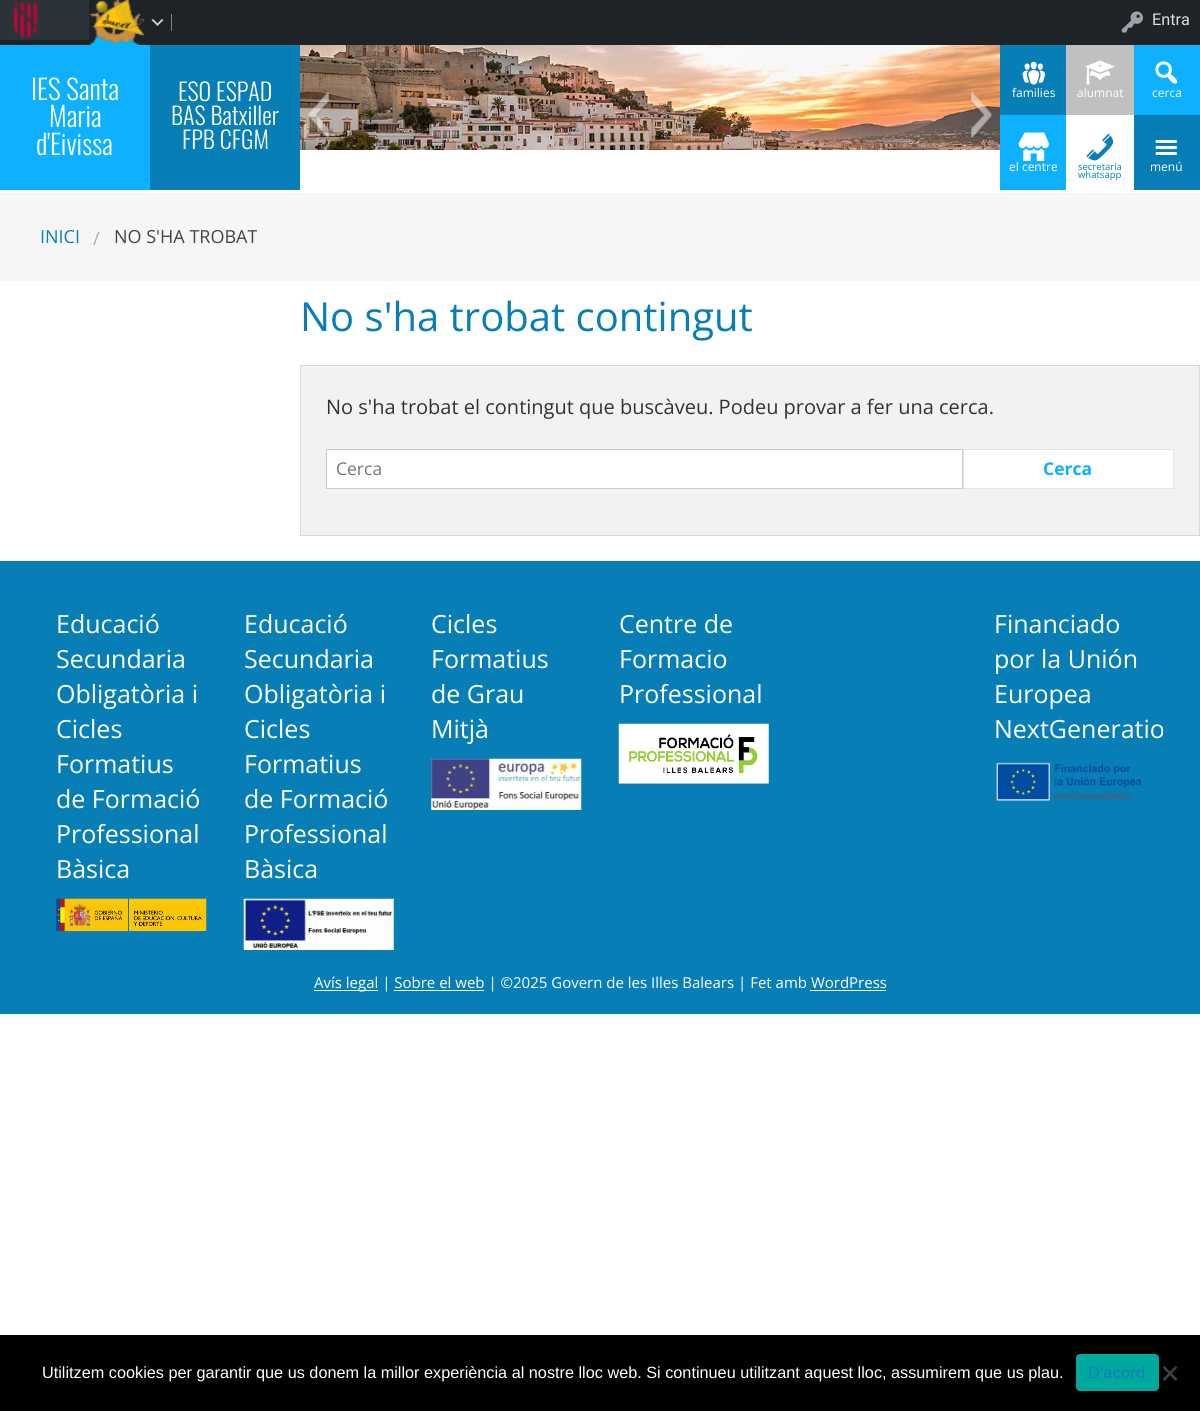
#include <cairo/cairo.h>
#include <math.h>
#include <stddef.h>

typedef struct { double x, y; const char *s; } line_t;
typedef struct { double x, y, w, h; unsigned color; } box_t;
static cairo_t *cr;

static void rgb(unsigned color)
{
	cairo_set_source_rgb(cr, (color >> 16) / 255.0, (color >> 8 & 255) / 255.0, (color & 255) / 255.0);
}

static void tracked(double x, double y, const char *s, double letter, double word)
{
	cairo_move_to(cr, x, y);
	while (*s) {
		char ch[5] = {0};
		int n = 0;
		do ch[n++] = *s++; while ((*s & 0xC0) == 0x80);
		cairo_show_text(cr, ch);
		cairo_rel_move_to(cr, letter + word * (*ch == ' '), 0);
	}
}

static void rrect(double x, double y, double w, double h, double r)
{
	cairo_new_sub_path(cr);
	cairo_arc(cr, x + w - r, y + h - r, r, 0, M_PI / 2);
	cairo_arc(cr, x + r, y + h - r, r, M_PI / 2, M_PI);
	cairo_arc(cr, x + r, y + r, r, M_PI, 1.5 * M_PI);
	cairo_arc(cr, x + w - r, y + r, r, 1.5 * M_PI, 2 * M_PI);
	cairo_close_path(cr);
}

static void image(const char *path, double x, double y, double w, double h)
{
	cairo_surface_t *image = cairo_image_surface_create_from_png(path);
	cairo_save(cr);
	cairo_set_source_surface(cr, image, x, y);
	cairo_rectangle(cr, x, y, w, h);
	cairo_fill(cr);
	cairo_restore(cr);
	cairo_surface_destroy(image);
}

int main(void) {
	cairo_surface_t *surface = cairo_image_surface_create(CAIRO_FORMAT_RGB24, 1200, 1411);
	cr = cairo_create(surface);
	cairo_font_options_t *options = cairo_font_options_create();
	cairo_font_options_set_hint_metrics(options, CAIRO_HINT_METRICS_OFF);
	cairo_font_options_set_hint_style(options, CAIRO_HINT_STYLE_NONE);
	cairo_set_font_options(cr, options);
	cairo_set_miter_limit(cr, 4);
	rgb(0xffffff);
	cairo_paint(cr);
	rgb(0x1d2327);
	cairo_rectangle(cr, 0, 0, 1200, 45);
	cairo_fill(cr);
	rgb(0x2c3338);
	cairo_rectangle(cr, 0, 0, 89, 40);
	cairo_fill(cr);
	image("img/1.png", 12, 2, 26, 37);
	image("img/2.png", 89, 0, 55, 45);
	rgb(0x808080);
	cairo_rectangle(cr, 171, 14, 1, 17);
	cairo_fill(cr);
	image("img/3.png", 151, 19, 13, 7);
	image("img/4.png", 1121, 11, 22, 22);
	rgb(0x0eb1ff);
	cairo_rectangle(cr, 0, 45, 150, 145);
	cairo_fill(cr);
	rgb(0x087eb6);
	cairo_rectangle(cr, 150, 45, 150, 145);
	cairo_fill(cr);
	image("img/5.png", 300, 45, 700, 105);
	image("img/6.png", 308, 92, 21, 47);
	image("img/7.png", 971, 92, 21, 47);
	cairo_rectangle(cr, 1000, 45, 66, 70);
	cairo_fill(cr);
	image("img/8.png", 1022, 61, 23, 24);
	rgb(0xc0c0c0);
	cairo_rectangle(cr, 1066, 45, 68, 70);
	cairo_fill(cr);
	image("img/9.png", 1085, 60, 30, 25);
	rgb(0x0eb1ff);
	cairo_rectangle(cr, 1134, 45, 66, 70);
	cairo_fill(cr);
	image("img/10.png", 1155, 61, 23, 23);
	cairo_rectangle(cr, 1000, 115, 66, 75);
	cairo_fill(cr);
	image("img/11.png", 1018, 132, 31, 29);
	image("img/12.png", 1086, 133, 28, 28);
	rgb(0x087eb6);
	cairo_rectangle(cr, 1134, 115, 66, 75);
	cairo_fill(cr);
	image("img/13.png", 1155, 140, 22, 15);
	rgb(0xf6f6f6);
	cairo_rectangle(cr, 0, 193, 1200, 88);
	cairo_fill(cr);
	rgb(0xf2f2f2);
	cairo_rectangle(cr, 300.5, 365.5, 899, 170);
	cairo_fill_preserve(cr);
	rgb(0xd9d9d9);
	cairo_set_line_width(cr, 1);
	cairo_stroke(cr);
	rgb(0xffffff);
	cairo_rectangle(cr, 326.5, 449.5, 636, 39);
	cairo_fill_preserve(cr);
	rgb(0xcccccc);
	cairo_stroke(cr);
	rgb(0xffffff);
	cairo_rectangle(cr, 963.5, 449.5, 210, 39);
	cairo_fill_preserve(cr);
	rgb(0xe6e6e6);
	cairo_stroke(cr);
	rgb(0x087eb6);
	cairo_rectangle(cr, 0, 561, 1200, 453);
	cairo_fill(cr);
	image("img/14.png", 56, 898, 151, 34);
	image("img/15.png", 243, 898, 151, 52);
	image("img/16.png", 431, 758, 151, 52);
	image("img/17.png", 618, 723, 151, 61);
	image("img/18.png", 996, 762, 146, 39);
	{
		static const box_t items[] = {
			{314, 990, 64, 1, 0xffffff},
			{394, 990, 90, 1, 0xffffff},
			{810, 990, 76, 1, 0xffffff},
			{0, 1335, 1200, 76, 0x000000},
		};
		for (size_t i = 0; i < sizeof items / sizeof *items; i++) {
			rgb(items[i].color);
			cairo_rectangle(cr, items[i].x, items[i].y, items[i].w, items[i].h);
			cairo_fill(cr);
		}
	}
	rgb(0x00a99d);
	rrect(1076, 1354, 83, 37, 4);
	cairo_fill(cr);
	rgb(0x404040);
	cairo_new_path(cr);
	cairo_move_to(cr, 1175.5, 1366);
	cairo_line_to(cr, 1177.5, 1367.5);
	cairo_line_to(cr, 1164.5, 1381);
	cairo_line_to(cr, 1162.5, 1379);
	cairo_close_path(cr);
	cairo_fill(cr);
	cairo_new_path(cr);
	cairo_move_to(cr, 1162.5, 1367.5);
	cairo_line_to(cr, 1164.5, 1366);
	cairo_line_to(cr, 1177.5, 1379);
	cairo_line_to(cr, 1175.5, 1381);
	cairo_close_path(cr);
	cairo_fill(cr);
	cairo_select_font_face(cr, "Roboto", CAIRO_FONT_SLANT_NORMAL, CAIRO_FONT_WEIGHT_NORMAL);
	cairo_set_font_size(cr, 16.25);
	rgb(0xdddddd);
	cairo_move_to(cr, 1152, 25);
	cairo_show_text(cr, "Entra");
	cairo_select_font_face(cr, "Oswald Light", CAIRO_FONT_SLANT_NORMAL, CAIRO_FONT_WEIGHT_NORMAL);
	cairo_set_font_size(cr, 27.5);
	rgb(0xffffff);
	{
		static const line_t items[] = {
			{31, 100, "IES Santa"},
			{49, 127, "Maria"},
			{36, 155, "d'Eivissa"},
		};
		for (size_t i = 0; i < sizeof items / sizeof *items; i++) {
			cairo_move_to(cr, items[i].x, items[i].y);
			cairo_show_text(cr, items[i].s);
		}
	}
	cairo_set_font_size(cr, 24);
	{
		static const line_t items[] = {
			{178, 101, "ESO ESPAD"},
			{171, 125, "BAS Batxiller"},
			{182, 149, "FPB CFGM"},
		};
		for (size_t i = 0; i < sizeof items / sizeof *items; i++) {
			cairo_move_to(cr, items[i].x, items[i].y);
			cairo_show_text(cr, items[i].s);
		}
	}
	cairo_select_font_face(cr, "Open Sans", CAIRO_FONT_SLANT_NORMAL, CAIRO_FONT_WEIGHT_NORMAL);
	cairo_set_font_size(cr, 12);
	{
		static const line_t items[] = {
			{1012, 97, "families"},
			{1077, 97, "alumnat"},
			{1152, 97, "cerca"},
			{1009, 171, "el centre"},
		};
		for (size_t i = 0; i < sizeof items / sizeof *items; i++) {
			cairo_move_to(cr, items[i].x, items[i].y);
			cairo_show_text(cr, items[i].s);
		}
	}
	cairo_set_font_size(cr, 9.5);
	rgb(0x087eb6);
	cairo_move_to(cr, 1078, 170);
	cairo_show_text(cr, "secretaria");
	cairo_move_to(cr, 1078, 178);
	cairo_show_text(cr, "whatsapp");
	cairo_set_font_size(cr, 12);
	rgb(0xffffff);
	cairo_move_to(cr, 1150, 171);
	cairo_show_text(cr, "menú");
	cairo_set_font_size(cr, 18);
	rgb(0x087eb6);
	cairo_move_to(cr, 40, 243);
	cairo_show_text(cr, "INICI");
	rgb(0xaaaaaa);
	cairo_move_to(cr, 93, 245);
	cairo_show_text(cr, "/");
	rgb(0x444444);
	cairo_move_to(cr, 114, 243);
	cairo_show_text(cr, "NO S'HA TROBAT");
	cairo_set_font_size(cr, 40);
	rgb(0x087eb6);
	cairo_move_to(cr, 300, 331);
	cairo_show_text(cr, "No s'ha trobat contingut");
	cairo_set_font_size(cr, 20);
	rgb(0x333333);
	cairo_move_to(cr, 326, 414);
	cairo_show_text(cr, "No s'ha trobat el contingut que buscàveu. Podeu provar a fer una cerca.");
	cairo_set_font_size(cr, 17.5);
	rgb(0x757575);
	cairo_move_to(cr, 336, 475);
	cairo_show_text(cr, "Cerca");
	cairo_select_font_face(cr, "Open Sans", CAIRO_FONT_SLANT_NORMAL, CAIRO_FONT_WEIGHT_BOLD);
	rgb(0x0eb1ff);
	cairo_move_to(cr, 1043, 475);
	cairo_show_text(cr, "Cerca");
	cairo_select_font_face(cr, "Open Sans", CAIRO_FONT_SLANT_NORMAL, CAIRO_FONT_WEIGHT_NORMAL);
	cairo_set_font_size(cr, 25);
	rgb(0xffffff);
	{
		static const line_t items[] = {
			{56, 633, "Educació"},
			{56, 668, "Secundaria"},
			{56, 703, "Obligatòria i"},
			{56, 738, "Cicles"},
			{56, 773, "Formatius"},
			{56, 808, "de Formació"},
			{56, 843, "Professional"},
			{56, 878, "Bàsica"},
			{244, 633, "Educació"},
			{244, 668, "Secundaria"},
			{244, 703, "Obligatòria i"},
			{244, 738, "Cicles"},
			{244, 773, "Formatius"},
			{244, 808, "de Formació"},
			{244, 843, "Professional"},
			{244, 878, "Bàsica"},
			{431, 633, "Cicles"},
			{431, 668, "Formatius"},
			{431, 703, "de Grau"},
			{431, 738, "Mitjà"},
			{619, 633, "Centre de"},
			{619, 668, "Formacio"},
			{619, 703, "Professional"},
			{994, 633, "Financiado"},
			{994, 668, "por la Unión"},
			{994, 703, "Europea"},
		};
		for (size_t i = 0; i < sizeof items / sizeof *items; i++) {
			cairo_move_to(cr, items[i].x, items[i].y);
			cairo_show_text(cr, items[i].s);
		}
	}
	cairo_save(cr);
	cairo_rectangle(cr, 975, 601, 188, 203);
	cairo_clip(cr);
	cairo_move_to(cr, 994, 738);
	cairo_show_text(cr, "NextGeneratio");
	cairo_restore(cr);
	cairo_set_font_size(cr, 15);
	cairo_move_to(cr, 314, 988);
	cairo_show_text(cr, "Avís legal | Sobre el web | ©2025 Govern de les Illes Balears | Fet amb WordPress");
	cairo_select_font_face(cr, "Liberation Sans", CAIRO_FONT_SLANT_NORMAL, CAIRO_FONT_WEIGHT_NORMAL);
	cairo_set_font_size(cr, 16.25);
	cairo_move_to(cr, 42, 1378);
	cairo_show_text(cr, "Utilitzem cookies per garantir que us donem la millor experiència al nostre lloc web. Si continueu utilitzant aquest lloc, assumirem que us plau.");
	rgb(0x087eb6);
	tracked(1088, 1378, "D'acord", 0.25, 0);
	cairo_surface_write_to_png(surface, "page.png");
	cairo_font_options_destroy(options);
	cairo_destroy(cr);
	cairo_surface_destroy(surface);
	return 0;
}
